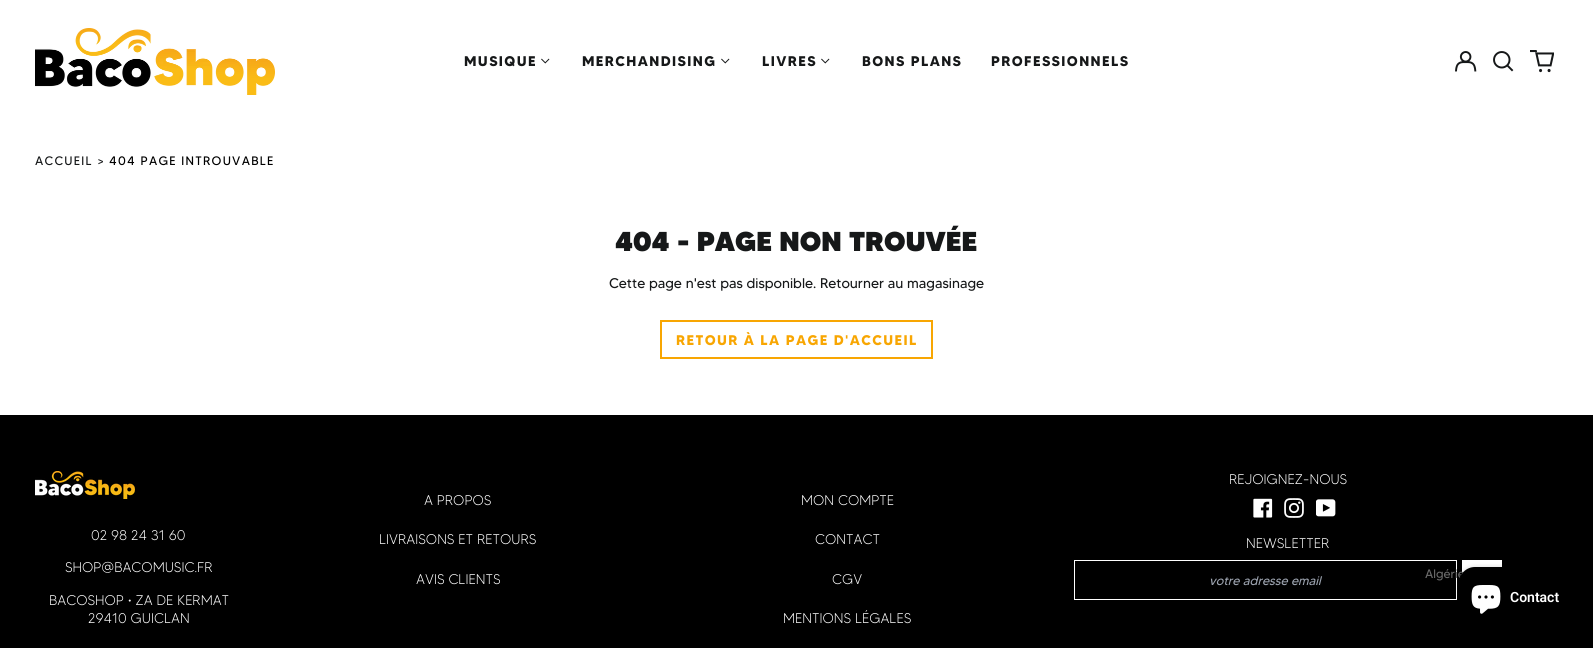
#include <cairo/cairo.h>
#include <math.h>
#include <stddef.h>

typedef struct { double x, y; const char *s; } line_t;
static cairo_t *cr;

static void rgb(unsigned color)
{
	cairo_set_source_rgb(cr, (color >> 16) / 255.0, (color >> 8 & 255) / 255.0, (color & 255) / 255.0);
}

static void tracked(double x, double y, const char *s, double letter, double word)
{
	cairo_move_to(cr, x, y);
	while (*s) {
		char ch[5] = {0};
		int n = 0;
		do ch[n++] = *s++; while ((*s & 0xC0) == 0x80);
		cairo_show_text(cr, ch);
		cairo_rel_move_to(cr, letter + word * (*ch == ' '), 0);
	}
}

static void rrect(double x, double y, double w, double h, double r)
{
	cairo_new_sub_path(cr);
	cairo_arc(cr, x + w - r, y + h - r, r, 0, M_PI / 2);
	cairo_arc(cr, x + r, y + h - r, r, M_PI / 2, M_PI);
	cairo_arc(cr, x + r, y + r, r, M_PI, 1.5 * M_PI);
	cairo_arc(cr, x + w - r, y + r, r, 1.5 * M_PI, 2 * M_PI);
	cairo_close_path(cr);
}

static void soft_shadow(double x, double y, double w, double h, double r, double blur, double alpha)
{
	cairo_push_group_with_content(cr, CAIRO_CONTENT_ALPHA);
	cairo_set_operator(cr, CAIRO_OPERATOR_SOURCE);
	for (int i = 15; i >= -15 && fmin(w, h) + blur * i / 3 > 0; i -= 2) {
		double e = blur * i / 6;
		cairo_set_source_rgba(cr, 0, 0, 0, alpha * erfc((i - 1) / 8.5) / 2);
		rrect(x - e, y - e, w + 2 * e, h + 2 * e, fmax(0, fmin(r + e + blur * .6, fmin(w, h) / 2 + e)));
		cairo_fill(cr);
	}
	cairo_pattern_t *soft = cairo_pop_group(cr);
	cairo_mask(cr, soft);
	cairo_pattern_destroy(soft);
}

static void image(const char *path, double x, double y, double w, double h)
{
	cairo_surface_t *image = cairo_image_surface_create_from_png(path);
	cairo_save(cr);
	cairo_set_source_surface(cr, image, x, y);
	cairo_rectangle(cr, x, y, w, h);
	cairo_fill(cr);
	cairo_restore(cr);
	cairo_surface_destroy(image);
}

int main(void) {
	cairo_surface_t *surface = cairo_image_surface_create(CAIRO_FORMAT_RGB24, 1593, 648);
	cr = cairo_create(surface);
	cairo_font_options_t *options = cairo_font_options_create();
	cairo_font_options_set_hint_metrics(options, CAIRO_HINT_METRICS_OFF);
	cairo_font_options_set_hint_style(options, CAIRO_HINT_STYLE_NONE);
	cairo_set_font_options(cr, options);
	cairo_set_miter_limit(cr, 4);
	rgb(0xffffff);
	cairo_paint(cr);
	image("img/1.png", 35, 28, 240, 67);
	image("img/2.png", 541, 58, 9, 6);
	image("img/2.png", 721, 58, 9, 6);
	image("img/2.png", 821, 58, 9, 6);
	image("img/3.png", 1455, 51, 22, 21);
	image("img/4.png", 1493, 51, 21, 21);
	image("img/5.png", 1530, 50, 24, 23);
	cairo_rectangle(cr, 661, 321, 271, 37);
	rgb(0xf8a602);
	cairo_stroke(cr);
	rgb(0x000000);
	cairo_rectangle(cr, 0, 415, 1593, 233);
	cairo_fill(cr);
	image("img/6.png", 35, 471, 100, 28);
	image("img/7.png", 1253, 498, 20, 20);
	image("img/8.png", 1284, 498, 20, 20);
	image("img/9.png", 1316, 499, 20, 18);
	rgb(0xffffff);
	cairo_rectangle(cr, 1462, 560, 40, 14);
	cairo_fill(cr);
	cairo_rectangle(cr, 1074.5, 560.5, 382, 39);
	cairo_set_line_width(cr, 1);
	cairo_stroke(cr);
	rgb(0x000000);
	soft_shadow(1459, 567, 112, 60, 16, 2.5, 0.15);
	cairo_select_font_face(cr, "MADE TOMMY", CAIRO_FONT_SLANT_NORMAL, CAIRO_FONT_WEIGHT_BOLD);
	cairo_set_font_size(cr, 14);
	rgb(0x161819);
	{
		static const line_t items[] = {
			{464, 66, "MUSIQUE"},
			{582, 66, "MERCHANDISING"},
			{762, 66, "LIVRES"},
			{862, 66, "BONS PLANS"},
			{991, 66, "PROFESSIONNELS"},
		};
		for (size_t i = 0; i < sizeof items / sizeof *items; i++) {
			tracked(items[i].x, items[i].y, items[i].s, 1.4, 0);
		}
	}
	cairo_select_font_face(cr, "MADE TOMMY", CAIRO_FONT_SLANT_NORMAL, CAIRO_FONT_WEIGHT_NORMAL);
	cairo_set_font_size(cr, 12.25);
	tracked(35, 165, "ACCUEIL >", 1.25, 0);
	rgb(0x000000);
	tracked(109, 165, "404 PAGE INTROUVABLE", 1.25, 0);
	cairo_select_font_face(cr, "MADE TOMMY Black", CAIRO_FONT_SLANT_NORMAL, CAIRO_FONT_WEIGHT_NORMAL);
	cairo_set_font_size(cr, 27.3);
	rgb(0x161819);
	cairo_move_to(cr, 615, 251);
	cairo_show_text(cr, "404 - PAGE NON TROUVÉE");
	cairo_select_font_face(cr, "MADE TOMMY", CAIRO_FONT_SLANT_NORMAL, CAIRO_FONT_WEIGHT_NORMAL);
	cairo_set_font_size(cr, 14);
	cairo_move_to(cr, 609, 288);
	cairo_show_text(cr, "Cette page n'est pas disponible. Retourner au magasinage");
	cairo_select_font_face(cr, "MADE TOMMY", CAIRO_FONT_SLANT_NORMAL, CAIRO_FONT_WEIGHT_BOLD);
	rgb(0xf8a602);
	tracked(676, 345, "RETOUR À LA PAGE D'ACCUEIL", 1.4, 0);
	cairo_select_font_face(cr, "MADE TOMMY Light", CAIRO_FONT_SLANT_NORMAL, CAIRO_FONT_WEIGHT_NORMAL);
	rgb(0xffffff);
	{
		static const line_t items[] = {
			{91, 540, "02 98 24 31 60"},
			{65, 572, "SHOP@BACOMUSIC.FR"},
			{49, 605, "BACOSHOP • ZA DE KERMAT"},
			{88, 623, "29410 GUICLAN"},
			{424, 505, "A PROPOS"},
			{379, 544, "LIVRAISONS ET RETOURS"},
			{416, 584, "AVIS CLIENTS"},
			{801, 505, "MON COMPTE"},
			{815, 544, "CONTACT"},
			{832, 584, "CGV"},
			{783, 623, "MENTIONS LÉGALES"},
			{1229, 484, "REJOIGNEZ-NOUS"},
			{1246, 548, "NEWSLETTER"},
		};
		for (size_t i = 0; i < sizeof items / sizeof *items; i++) {
			cairo_move_to(cr, items[i].x, items[i].y);
			cairo_show_text(cr, items[i].s);
		}
	}
	cairo_select_font_face(cr, "MADE TOMMY", CAIRO_FONT_SLANT_ITALIC, CAIRO_FONT_WEIGHT_NORMAL);
	cairo_set_font_size(cr, 12.5);
	rgb(0x9ca3af);
	cairo_move_to(cr, 1209, 585);
	cairo_show_text(cr, "votre adresse email");
	cairo_select_font_face(cr, "MADE TOMMY", CAIRO_FONT_SLANT_NORMAL, CAIRO_FONT_WEIGHT_NORMAL);
	cairo_set_font_size(cr, 12.25);
	rgb(0x6b6b6b);
	cairo_move_to(cr, 1425, 578);
	cairo_show_text(cr, "Algérie");
	rgb(0x000000);
	rrect(1459, 567, 112, 60, 16);
	cairo_fill(cr);
	image("img/10.png", 1471, 585, 30, 29);
	cairo_select_font_face(cr, "Roboto SemiBold", CAIRO_FONT_SLANT_NORMAL, CAIRO_FONT_WEIGHT_NORMAL);
	cairo_set_font_size(cr, 14);
	rgb(0xffffff);
	cairo_move_to(cr, 1510, 602);
	cairo_show_text(cr, "Contact");
	cairo_surface_write_to_png(surface, "page.png");
	cairo_font_options_destroy(options);
	cairo_destroy(cr);
	cairo_surface_destroy(surface);
	return 0;
}
